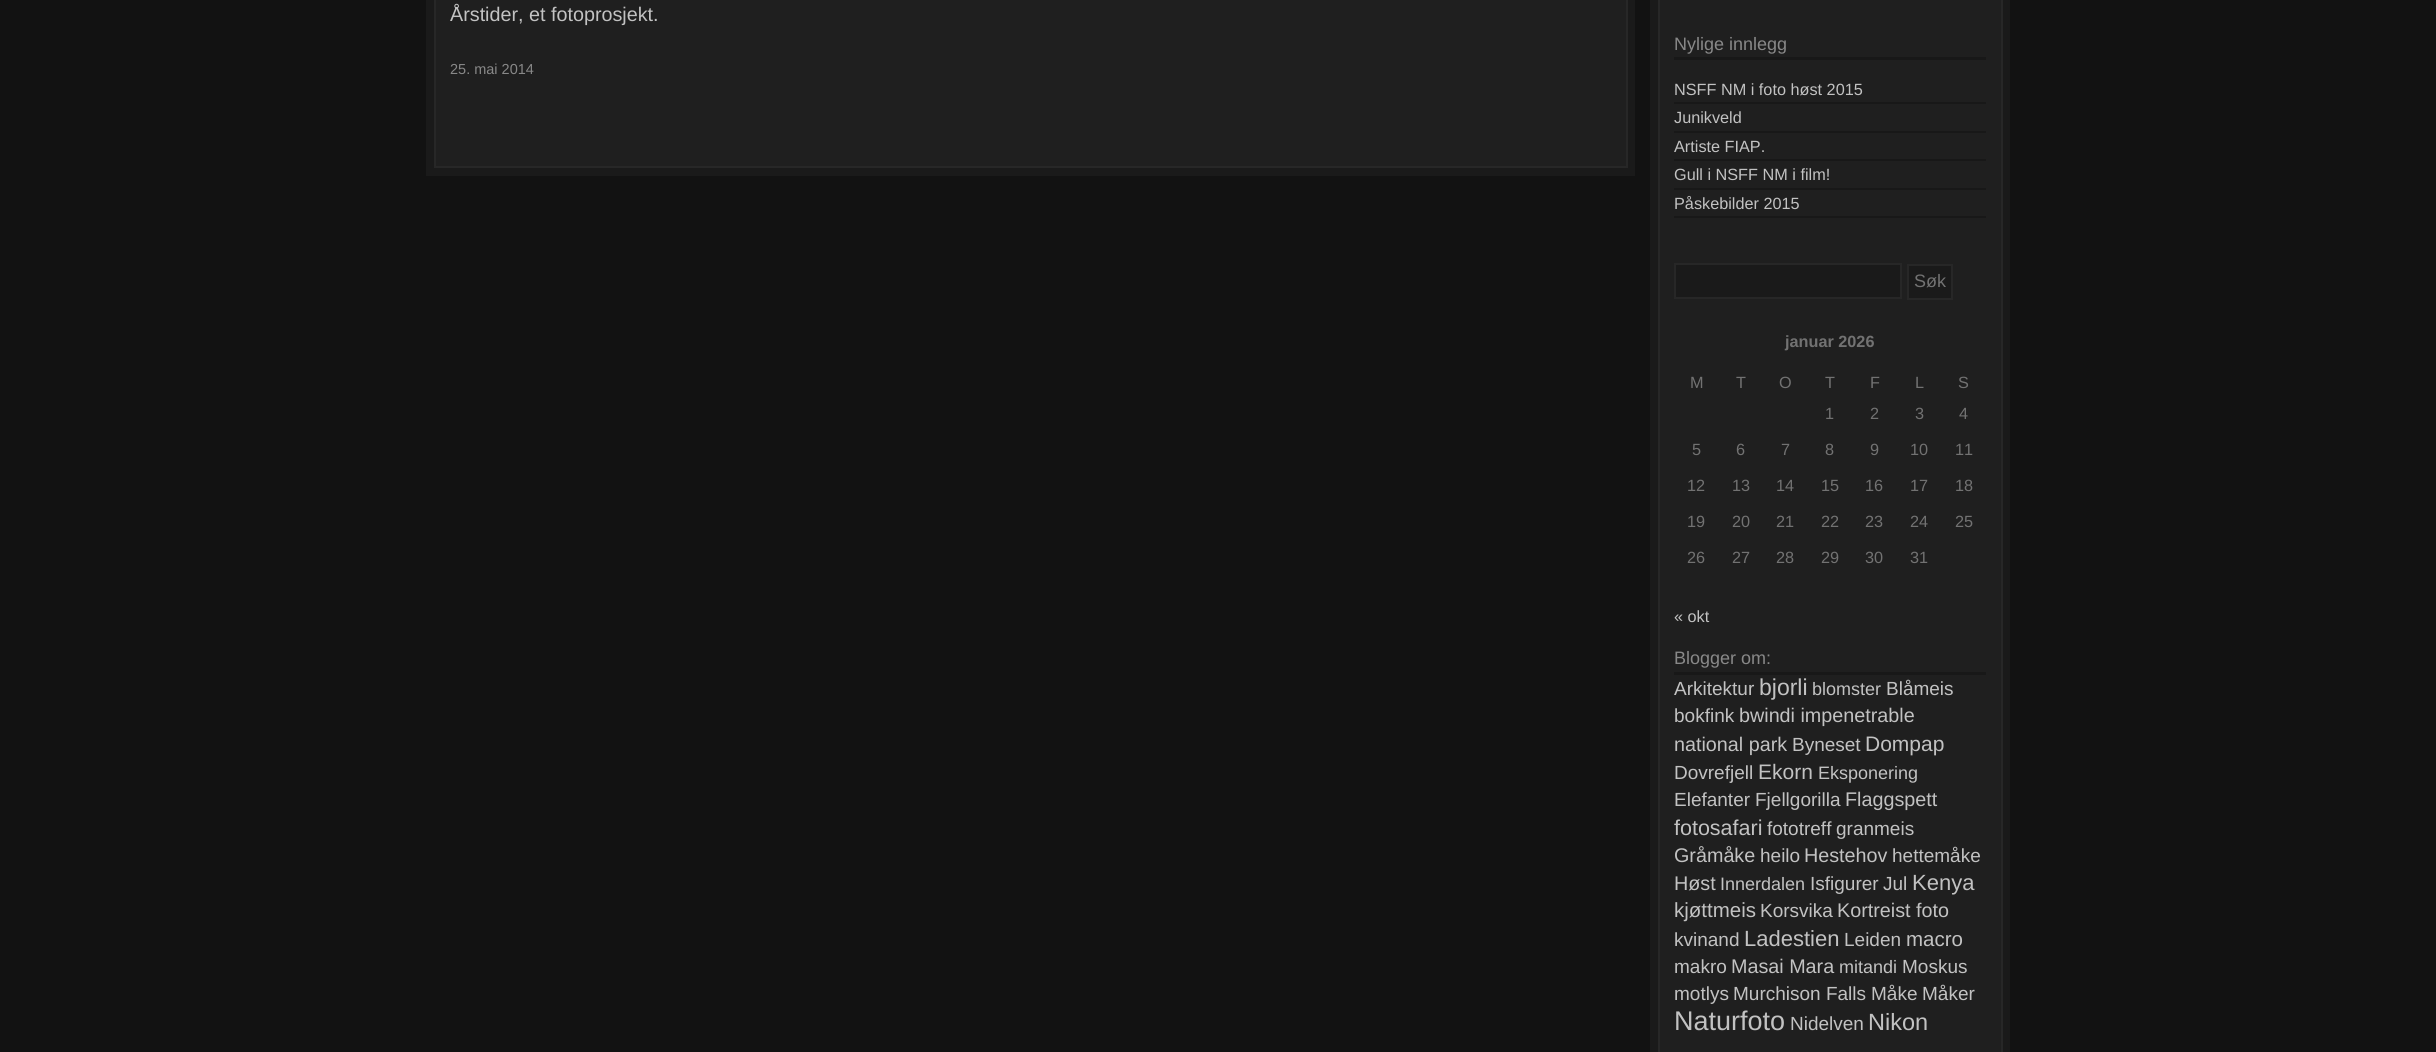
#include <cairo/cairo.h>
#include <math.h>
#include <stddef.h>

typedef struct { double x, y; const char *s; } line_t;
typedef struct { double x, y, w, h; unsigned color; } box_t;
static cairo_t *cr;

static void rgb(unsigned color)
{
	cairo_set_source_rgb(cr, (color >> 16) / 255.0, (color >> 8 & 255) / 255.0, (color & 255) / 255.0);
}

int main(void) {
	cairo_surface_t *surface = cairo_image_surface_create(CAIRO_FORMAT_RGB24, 2436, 1052);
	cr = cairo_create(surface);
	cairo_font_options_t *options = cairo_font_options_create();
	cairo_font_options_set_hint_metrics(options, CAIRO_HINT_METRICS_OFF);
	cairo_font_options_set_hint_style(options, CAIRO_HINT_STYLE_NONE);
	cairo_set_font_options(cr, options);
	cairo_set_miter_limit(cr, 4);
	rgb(0x121212);
	cairo_paint(cr);
	rgb(0x1a1a1a);
	cairo_rectangle(cr, 426, 0, 1209, 176);
	cairo_fill(cr);
	rgb(0x1f1f1f);
	cairo_rectangle(cr, 435, -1, 1192, 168);
	cairo_fill_preserve(cr);
	rgb(0x272727);
	cairo_stroke(cr);
	rgb(0x1a1a1a);
	cairo_rectangle(cr, 1650, 0, 360, 1052);
	cairo_fill(cr);
	rgb(0x1f1f1f);
	cairo_rectangle(cr, 1659, -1, 343, 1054);
	cairo_fill_preserve(cr);
	rgb(0x272727);
	cairo_stroke(cr);
	{
		static const box_t items[] = {
			{1674, 57, 312, 3, 0x181818},
			{1674, 102, 312, 2, 0x181818},
			{1674, 131, 312, 2, 0x181818},
			{1674, 159, 312, 2, 0x181818},
			{1674, 188, 312, 2, 0x181818},
			{1674, 216, 312, 2, 0x181818},
		};
		for (size_t i = 0; i < sizeof items / sizeof *items; i++) {
			rgb(items[i].color);
			cairo_rectangle(cr, items[i].x, items[i].y, items[i].w, items[i].h);
			cairo_fill(cr);
		}
	}
	rgb(0x1a1a1a);
	cairo_rectangle(cr, 1675, 264, 226, 34);
	cairo_fill_preserve(cr);
	rgb(0x272727);
	cairo_stroke(cr);
	rgb(0x1a1a1a);
	cairo_rectangle(cr, 1908, 265, 44, 34);
	cairo_fill_preserve(cr);
	rgb(0x272727);
	cairo_stroke(cr);
	rgb(0x181818);
	cairo_rectangle(cr, 1674, 672, 312, 3);
	cairo_fill(cr);
	cairo_select_font_face(cr, "Liberation Sans", CAIRO_FONT_SLANT_NORMAL, CAIRO_FONT_WEIGHT_NORMAL);
	cairo_set_font_size(cr, 19.75);
	rgb(0xc2c2c2);
	cairo_move_to(cr, 450, 21);
	cairo_show_text(cr, "Årstider, et fotoprosjekt.");
	cairo_set_font_size(cr, 14.5);
	rgb(0x888888);
	cairo_move_to(cr, 450, 74);
	cairo_show_text(cr, "25. mai 2014");
	cairo_set_font_size(cr, 18);
	cairo_move_to(cr, 1674, 50);
	cairo_show_text(cr, "Nylige innlegg");
	cairo_set_font_size(cr, 16.25);
	rgb(0xc2c2c2);
	{
		static const line_t items[] = {
			{1674, 95, "NSFF NM i foto høst 2015"},
			{1674, 123, "Junikveld"},
			{1674, 152, "Artiste FIAP."},
			{1674, 180, "Gull i NSFF NM i film!"},
			{1674, 209, "Påskebilder 2015"},
		};
		for (size_t i = 0; i < sizeof items / sizeof *items; i++) {
			cairo_move_to(cr, items[i].x, items[i].y);
			cairo_show_text(cr, items[i].s);
		}
	}
	cairo_set_font_size(cr, 18);
	rgb(0x727272);
	cairo_move_to(cr, 1914, 287);
	cairo_show_text(cr, "Søk");
	cairo_select_font_face(cr, "Liberation Sans", CAIRO_FONT_SLANT_NORMAL, CAIRO_FONT_WEIGHT_BOLD);
	cairo_set_font_size(cr, 16.25);
	cairo_move_to(cr, 1785, 347);
	cairo_show_text(cr, "januar 2026");
	cairo_select_font_face(cr, "Liberation Sans", CAIRO_FONT_SLANT_NORMAL, CAIRO_FONT_WEIGHT_NORMAL);
	{
		static const line_t items[] = {
			{1690, 388, "M"},
			{1736, 388, "T"},
			{1779, 388, "O"},
			{1825, 388, "T"},
			{1870, 388, "F"},
			{1915, 388, "L"},
			{1958, 388, "S"},
			{1825, 419, "1"},
			{1870, 419, "2"},
			{1915, 419, "3"},
			{1959, 419, "4"},
			{1692, 455, "5"},
			{1736, 455, "6"},
			{1781, 455, "7"},
			{1825, 455, "8"},
			{1870, 455, "9"},
			{1910, 455, "10"},
			{1955, 455, "11"},
			{1687, 491, "12"},
			{1732, 491, "13"},
			{1776, 491, "14"},
			{1821, 491, "15"},
			{1865, 491, "16"},
			{1910, 491, "17"},
			{1955, 491, "18"},
			{1687, 527, "19"},
			{1732, 527, "20"},
			{1776, 527, "21"},
			{1821, 527, "22"},
			{1865, 527, "23"},
			{1910, 527, "24"},
			{1955, 527, "25"},
			{1687, 563, "26"},
			{1732, 563, "27"},
			{1776, 563, "28"},
			{1821, 563, "29"},
			{1865, 563, "30"},
			{1910, 563, "31"},
		};
		for (size_t i = 0; i < sizeof items / sizeof *items; i++) {
			cairo_move_to(cr, items[i].x, items[i].y);
			cairo_show_text(cr, items[i].s);
		}
	}
	rgb(0xc2c2c2);
	cairo_move_to(cr, 1674, 622);
	cairo_show_text(cr, "« okt");
	cairo_set_font_size(cr, 18);
	rgb(0x888888);
	cairo_move_to(cr, 1674, 664);
	cairo_show_text(cr, "Blogger om:");
	cairo_set_font_size(cr, 19);
	rgb(0xc2c2c2);
	cairo_move_to(cr, 1674, 695);
	cairo_show_text(cr, "Arkitektur");
	cairo_set_font_size(cr, 23);
	cairo_move_to(cr, 1759, 695);
	cairo_show_text(cr, "bjorli");
	cairo_set_font_size(cr, 18);
	cairo_move_to(cr, 1812, 695);
	cairo_show_text(cr, "blomster");
	cairo_set_font_size(cr, 19);
	cairo_move_to(cr, 1886, 695);
	cairo_show_text(cr, "Blåmeis");
	cairo_move_to(cr, 1674, 722);
	cairo_show_text(cr, "bokfink");
	cairo_set_font_size(cr, 19.75);
	cairo_move_to(cr, 1739, 722);
	cairo_show_text(cr, "bwindi impenetrable");
	cairo_move_to(cr, 1674, 751);
	cairo_show_text(cr, "national park");
	cairo_set_font_size(cr, 19);
	cairo_move_to(cr, 1792, 751);
	cairo_show_text(cr, "Byneset");
	cairo_set_font_size(cr, 21);
	cairo_move_to(cr, 1865, 751);
	cairo_show_text(cr, "Dompap");
	cairo_set_font_size(cr, 19);
	cairo_move_to(cr, 1674, 779);
	cairo_show_text(cr, "Dovrefjell");
	cairo_set_font_size(cr, 21);
	cairo_move_to(cr, 1758, 779);
	cairo_show_text(cr, "Ekorn");
	cairo_set_font_size(cr, 18);
	cairo_move_to(cr, 1818, 779);
	cairo_show_text(cr, "Eksponering");
	cairo_set_font_size(cr, 19);
	cairo_move_to(cr, 1674, 806);
	cairo_show_text(cr, "Elefanter");
	cairo_move_to(cr, 1755, 806);
	cairo_show_text(cr, "Fjellgorilla");
	cairo_set_font_size(cr, 19.75);
	cairo_move_to(cr, 1845, 806);
	cairo_show_text(cr, "Flaggspett");
	cairo_set_font_size(cr, 21.5);
	cairo_move_to(cr, 1674, 835);
	cairo_show_text(cr, "fotosafari");
	cairo_set_font_size(cr, 19);
	cairo_move_to(cr, 1767, 835);
	cairo_show_text(cr, "fototreff");
	cairo_move_to(cr, 1836, 835);
	cairo_show_text(cr, "granmeis");
	cairo_set_font_size(cr, 19.75);
	cairo_move_to(cr, 1674, 862);
	cairo_show_text(cr, "Gråmåke");
	cairo_set_font_size(cr, 19);
	cairo_move_to(cr, 1760, 862);
	cairo_show_text(cr, "heilo");
	cairo_set_font_size(cr, 19.75);
	cairo_move_to(cr, 1804, 862);
	cairo_show_text(cr, "Hestehov");
	cairo_set_font_size(cr, 19);
	cairo_move_to(cr, 1892, 862);
	cairo_show_text(cr, "hettemåke");
	cairo_set_font_size(cr, 19.75);
	cairo_move_to(cr, 1674, 890);
	cairo_show_text(cr, "Høst");
	cairo_set_font_size(cr, 18);
	cairo_move_to(cr, 1720, 890);
	cairo_show_text(cr, "Innerdalen");
	cairo_set_font_size(cr, 19);
	cairo_move_to(cr, 1810, 890);
	cairo_show_text(cr, "Isfigurer");
	cairo_move_to(cr, 1883, 890);
	cairo_show_text(cr, "Jul");
	cairo_set_font_size(cr, 22);
	cairo_move_to(cr, 1912, 890);
	cairo_show_text(cr, "Kenya");
	cairo_set_font_size(cr, 20.5);
	cairo_move_to(cr, 1674, 917);
	cairo_show_text(cr, "kjøttmeis");
	cairo_set_font_size(cr, 19);
	cairo_move_to(cr, 1760, 917);
	cairo_show_text(cr, "Korsvika");
	cairo_set_font_size(cr, 19.75);
	cairo_move_to(cr, 1837, 917);
	cairo_show_text(cr, "Kortreist foto");
	cairo_set_font_size(cr, 19);
	cairo_move_to(cr, 1674, 946);
	cairo_show_text(cr, "kvinand");
	cairo_set_font_size(cr, 22);
	cairo_move_to(cr, 1744, 946);
	cairo_show_text(cr, "Ladestien");
	cairo_set_font_size(cr, 19);
	cairo_move_to(cr, 1844, 946);
	cairo_show_text(cr, "Leiden");
	cairo_set_font_size(cr, 20.5);
	cairo_move_to(cr, 1906, 946);
	cairo_show_text(cr, "macro");
	cairo_set_font_size(cr, 19);
	cairo_move_to(cr, 1674, 973);
	cairo_show_text(cr, "makro");
	cairo_set_font_size(cr, 19.75);
	cairo_move_to(cr, 1731, 973);
	cairo_show_text(cr, "Masai Mara");
	cairo_set_font_size(cr, 18);
	cairo_move_to(cr, 1839, 973);
	cairo_show_text(cr, "mitandi");
	cairo_set_font_size(cr, 19);
	{
		static const line_t items[] = {
			{1902, 973, "Moskus"},
			{1674, 1000, "motlys"},
			{1733, 1000, "Murchison Falls"},
			{1871, 1000, "Måke"},
			{1922, 1000, "Måker"},
		};
		for (size_t i = 0; i < sizeof items / sizeof *items; i++) {
			cairo_move_to(cr, items[i].x, items[i].y);
			cairo_show_text(cr, items[i].s);
		}
	}
	cairo_set_font_size(cr, 27);
	cairo_move_to(cr, 1674, 1030);
	cairo_show_text(cr, "Naturfoto");
	cairo_set_font_size(cr, 19);
	cairo_move_to(cr, 1790, 1030);
	cairo_show_text(cr, "Nidelven");
	cairo_set_font_size(cr, 23.5);
	cairo_move_to(cr, 1868, 1030);
	cairo_show_text(cr, "Nikon");
	cairo_surface_write_to_png(surface, "page.png");
	cairo_font_options_destroy(options);
	cairo_destroy(cr);
	cairo_surface_destroy(surface);
	return 0;
}
